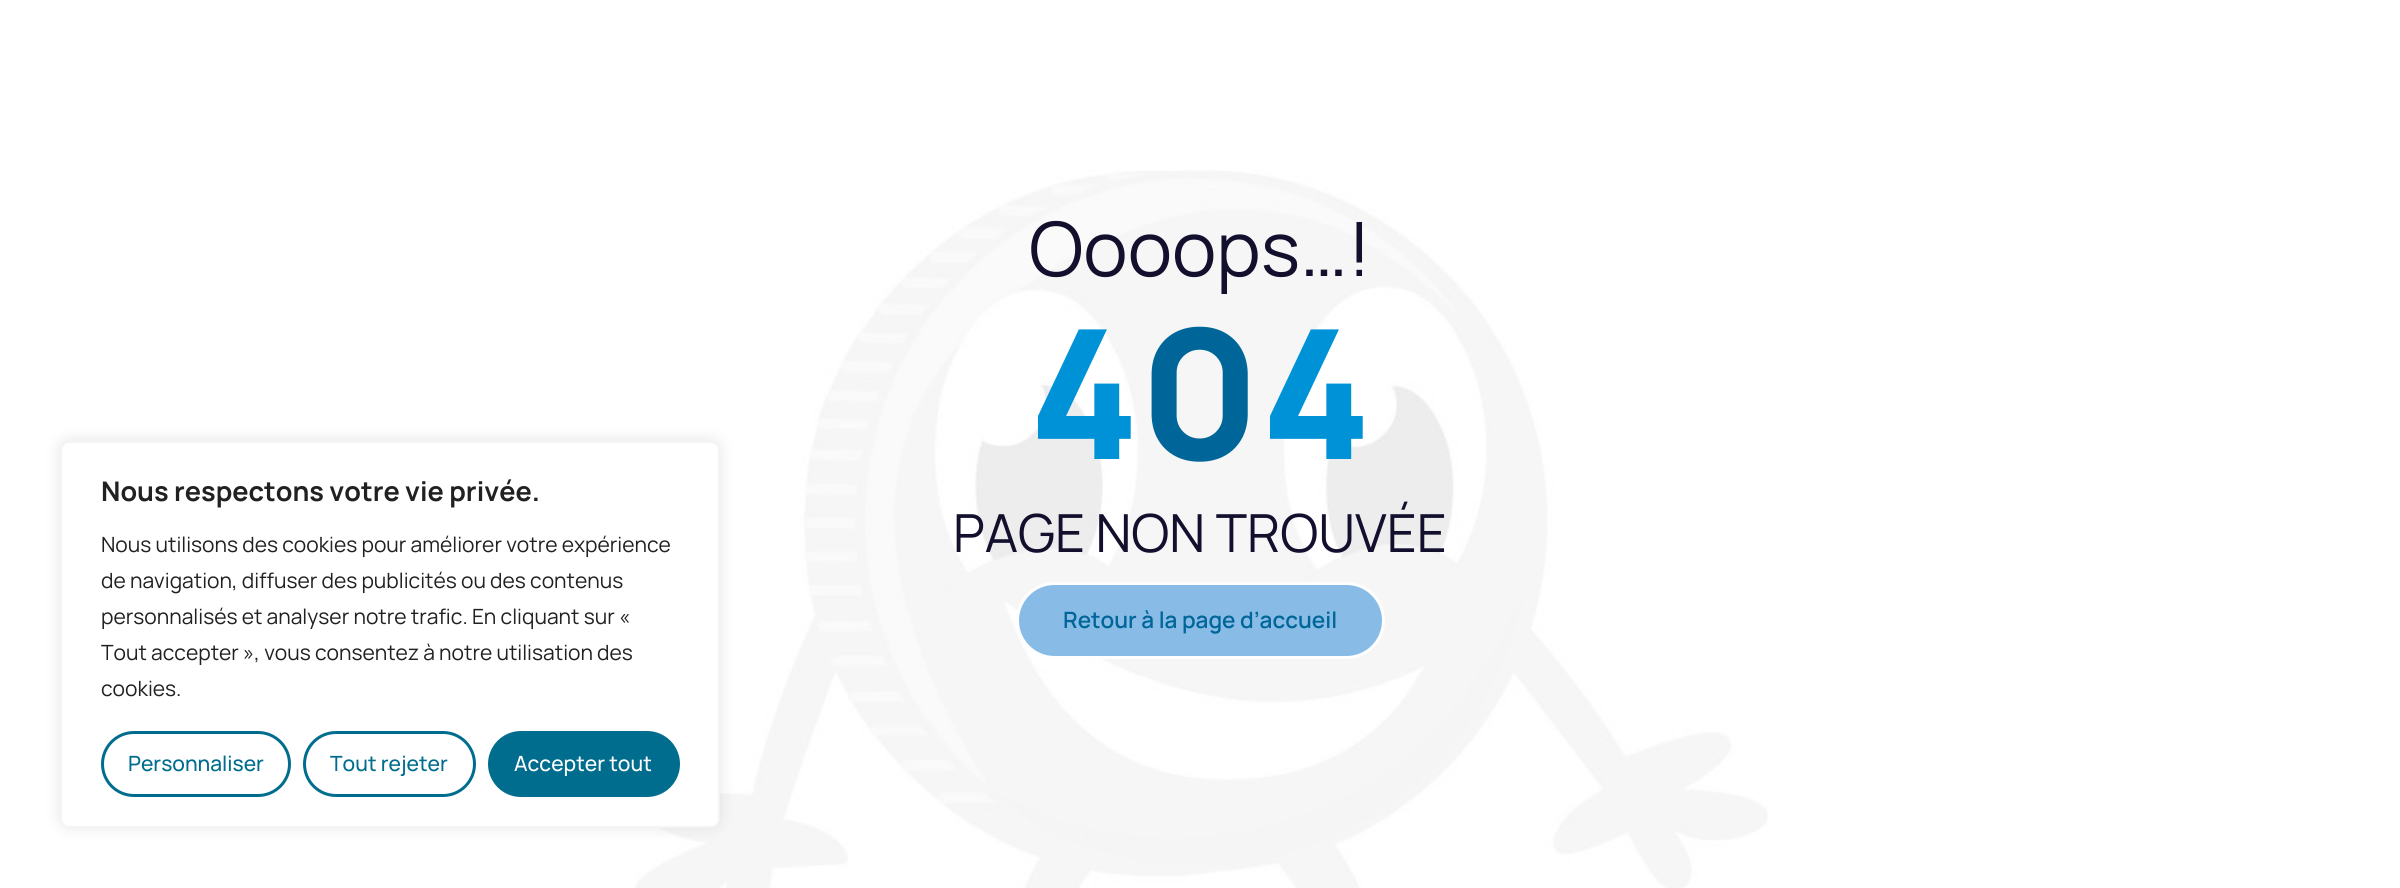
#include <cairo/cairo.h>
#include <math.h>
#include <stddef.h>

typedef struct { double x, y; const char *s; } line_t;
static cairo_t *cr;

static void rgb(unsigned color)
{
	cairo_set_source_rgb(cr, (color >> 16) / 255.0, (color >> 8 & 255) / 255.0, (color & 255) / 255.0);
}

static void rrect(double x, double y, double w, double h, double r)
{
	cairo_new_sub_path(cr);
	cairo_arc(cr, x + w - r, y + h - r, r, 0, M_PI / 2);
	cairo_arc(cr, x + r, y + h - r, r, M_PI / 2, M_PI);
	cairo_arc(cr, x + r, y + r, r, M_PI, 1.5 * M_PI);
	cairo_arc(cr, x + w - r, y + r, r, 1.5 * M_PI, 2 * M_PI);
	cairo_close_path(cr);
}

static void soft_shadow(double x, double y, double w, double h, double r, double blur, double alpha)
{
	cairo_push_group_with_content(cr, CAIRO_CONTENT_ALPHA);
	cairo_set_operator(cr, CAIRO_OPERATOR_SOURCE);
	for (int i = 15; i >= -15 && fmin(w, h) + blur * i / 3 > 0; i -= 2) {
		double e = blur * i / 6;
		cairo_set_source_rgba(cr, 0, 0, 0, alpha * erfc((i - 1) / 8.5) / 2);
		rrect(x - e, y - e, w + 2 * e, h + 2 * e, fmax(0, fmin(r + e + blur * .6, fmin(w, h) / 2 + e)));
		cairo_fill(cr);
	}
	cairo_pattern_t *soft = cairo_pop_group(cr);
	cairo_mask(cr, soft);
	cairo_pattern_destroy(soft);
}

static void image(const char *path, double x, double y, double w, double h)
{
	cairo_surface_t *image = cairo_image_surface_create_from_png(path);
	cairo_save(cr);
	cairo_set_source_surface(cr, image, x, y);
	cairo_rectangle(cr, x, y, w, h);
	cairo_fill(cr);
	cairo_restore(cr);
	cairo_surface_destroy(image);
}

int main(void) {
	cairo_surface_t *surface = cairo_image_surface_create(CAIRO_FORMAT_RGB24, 2400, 888);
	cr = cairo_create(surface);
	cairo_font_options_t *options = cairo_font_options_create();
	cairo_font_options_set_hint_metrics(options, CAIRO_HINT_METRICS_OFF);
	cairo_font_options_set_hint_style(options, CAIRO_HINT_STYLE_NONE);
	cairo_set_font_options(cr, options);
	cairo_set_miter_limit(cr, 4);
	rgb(0xffffff);
	cairo_paint(cr);
	image("img/1.png", 635, 170, 1133, 718);
	rgb(0xacabab);
	soft_shadow(60, 440, 660, 387, 9, 7.5, 0.3);
	rgb(0xffffff);
	rrect(61, 442, 658, 385, 8);
	cairo_fill_preserve(cr);
	rgb(0xf4f4f4);
	cairo_stroke(cr);
	rrect(102.5, 732.5, 187, 63, 31.5);
	rgb(0x006d8e);
	cairo_set_line_width(cr, 3);
	cairo_stroke(cr);
	rrect(304.5, 732.5, 170, 63, 31.5);
	cairo_stroke(cr);
	rrect(489.5, 732.5, 189, 63, 31.5);
	cairo_fill_preserve(cr);
	cairo_stroke(cr);
	rgb(0x88bce6);
	rrect(1017.5, 583.5, 366, 74, 37);
	cairo_fill_preserve(cr);
	rgb(0xfefefe);
	cairo_stroke(cr);
	cairo_select_font_face(cr, "Manrope", CAIRO_FONT_SLANT_NORMAL, CAIRO_FONT_WEIGHT_BOLD);
	cairo_set_font_size(cr, 27);
	rgb(0x212121);
	cairo_move_to(cr, 101, 501);
	cairo_show_text(cr, "Nous respectons votre vie privée.");
	cairo_select_font_face(cr, "Manrope", CAIRO_FONT_SLANT_NORMAL, CAIRO_FONT_WEIGHT_NORMAL);
	cairo_set_font_size(cr, 21);
	{
		static const line_t items[] = {
			{101, 552, "Nous utilisons des cookies pour améliorer votre expérience"},
			{101, 588, "de navigation, diffuser des publicités ou des contenus"},
			{101, 624, "personnalisés et analyser notre trafic. En cliquant sur «"},
			{101, 660, "Tout accepter », vous consentez à notre utilisation des"},
			{101, 696, "cookies."},
		};
		for (size_t i = 0; i < sizeof items / sizeof *items; i++) {
			cairo_move_to(cr, items[i].x, items[i].y);
			cairo_show_text(cr, items[i].s);
		}
	}
	cairo_select_font_face(cr, "Manrope Medium", CAIRO_FONT_SLANT_NORMAL, CAIRO_FONT_WEIGHT_NORMAL);
	rgb(0x006d8e);
	cairo_move_to(cr, 128, 771);
	cairo_show_text(cr, "Personnaliser");
	cairo_move_to(cr, 330, 771);
	cairo_show_text(cr, "Tout rejeter");
	rgb(0xffffff);
	cairo_move_to(cr, 514, 771);
	cairo_show_text(cr, "Accepter tout");
	cairo_select_font_face(cr, "Manrope", CAIRO_FONT_SLANT_NORMAL, CAIRO_FONT_WEIGHT_NORMAL);
	cairo_set_font_size(cr, 75);
	rgb(0x13102d);
	cairo_move_to(cr, 1029, 276);
	cairo_show_text(cr, "Oooops…!");
	cairo_select_font_face(cr, "Manrope ExtraBold", CAIRO_FONT_SLANT_NORMAL, CAIRO_FONT_WEIGHT_NORMAL);
	cairo_set_font_size(cr, 180);
	rgb(0x0092d7);
	cairo_move_to(cr, 1029, 459);
	cairo_show_text(cr, "4");
	rgb(0x006699);
	cairo_move_to(cr, 1139, 459);
	cairo_show_text(cr, "0");
	rgb(0x0092d7);
	cairo_move_to(cr, 1261, 459);
	cairo_show_text(cr, "4");
	cairo_select_font_face(cr, "Manrope", CAIRO_FONT_SLANT_NORMAL, CAIRO_FONT_WEIGHT_NORMAL);
	cairo_set_font_size(cr, 52.5);
	rgb(0x13102d);
	cairo_move_to(cr, 953, 552);
	cairo_show_text(cr, "PAGE NON TROUVÉE");
	cairo_select_font_face(cr, "Manrope SemiBold", CAIRO_FONT_SLANT_NORMAL, CAIRO_FONT_WEIGHT_NORMAL);
	cairo_set_font_size(cr, 22.5);
	rgb(0x006699);
	cairo_move_to(cr, 1063, 628);
	cairo_show_text(cr, "Retour à la page d’accueil");
	cairo_surface_write_to_png(surface, "page.png");
	cairo_font_options_destroy(options);
	cairo_destroy(cr);
	cairo_surface_destroy(surface);
	return 0;
}
